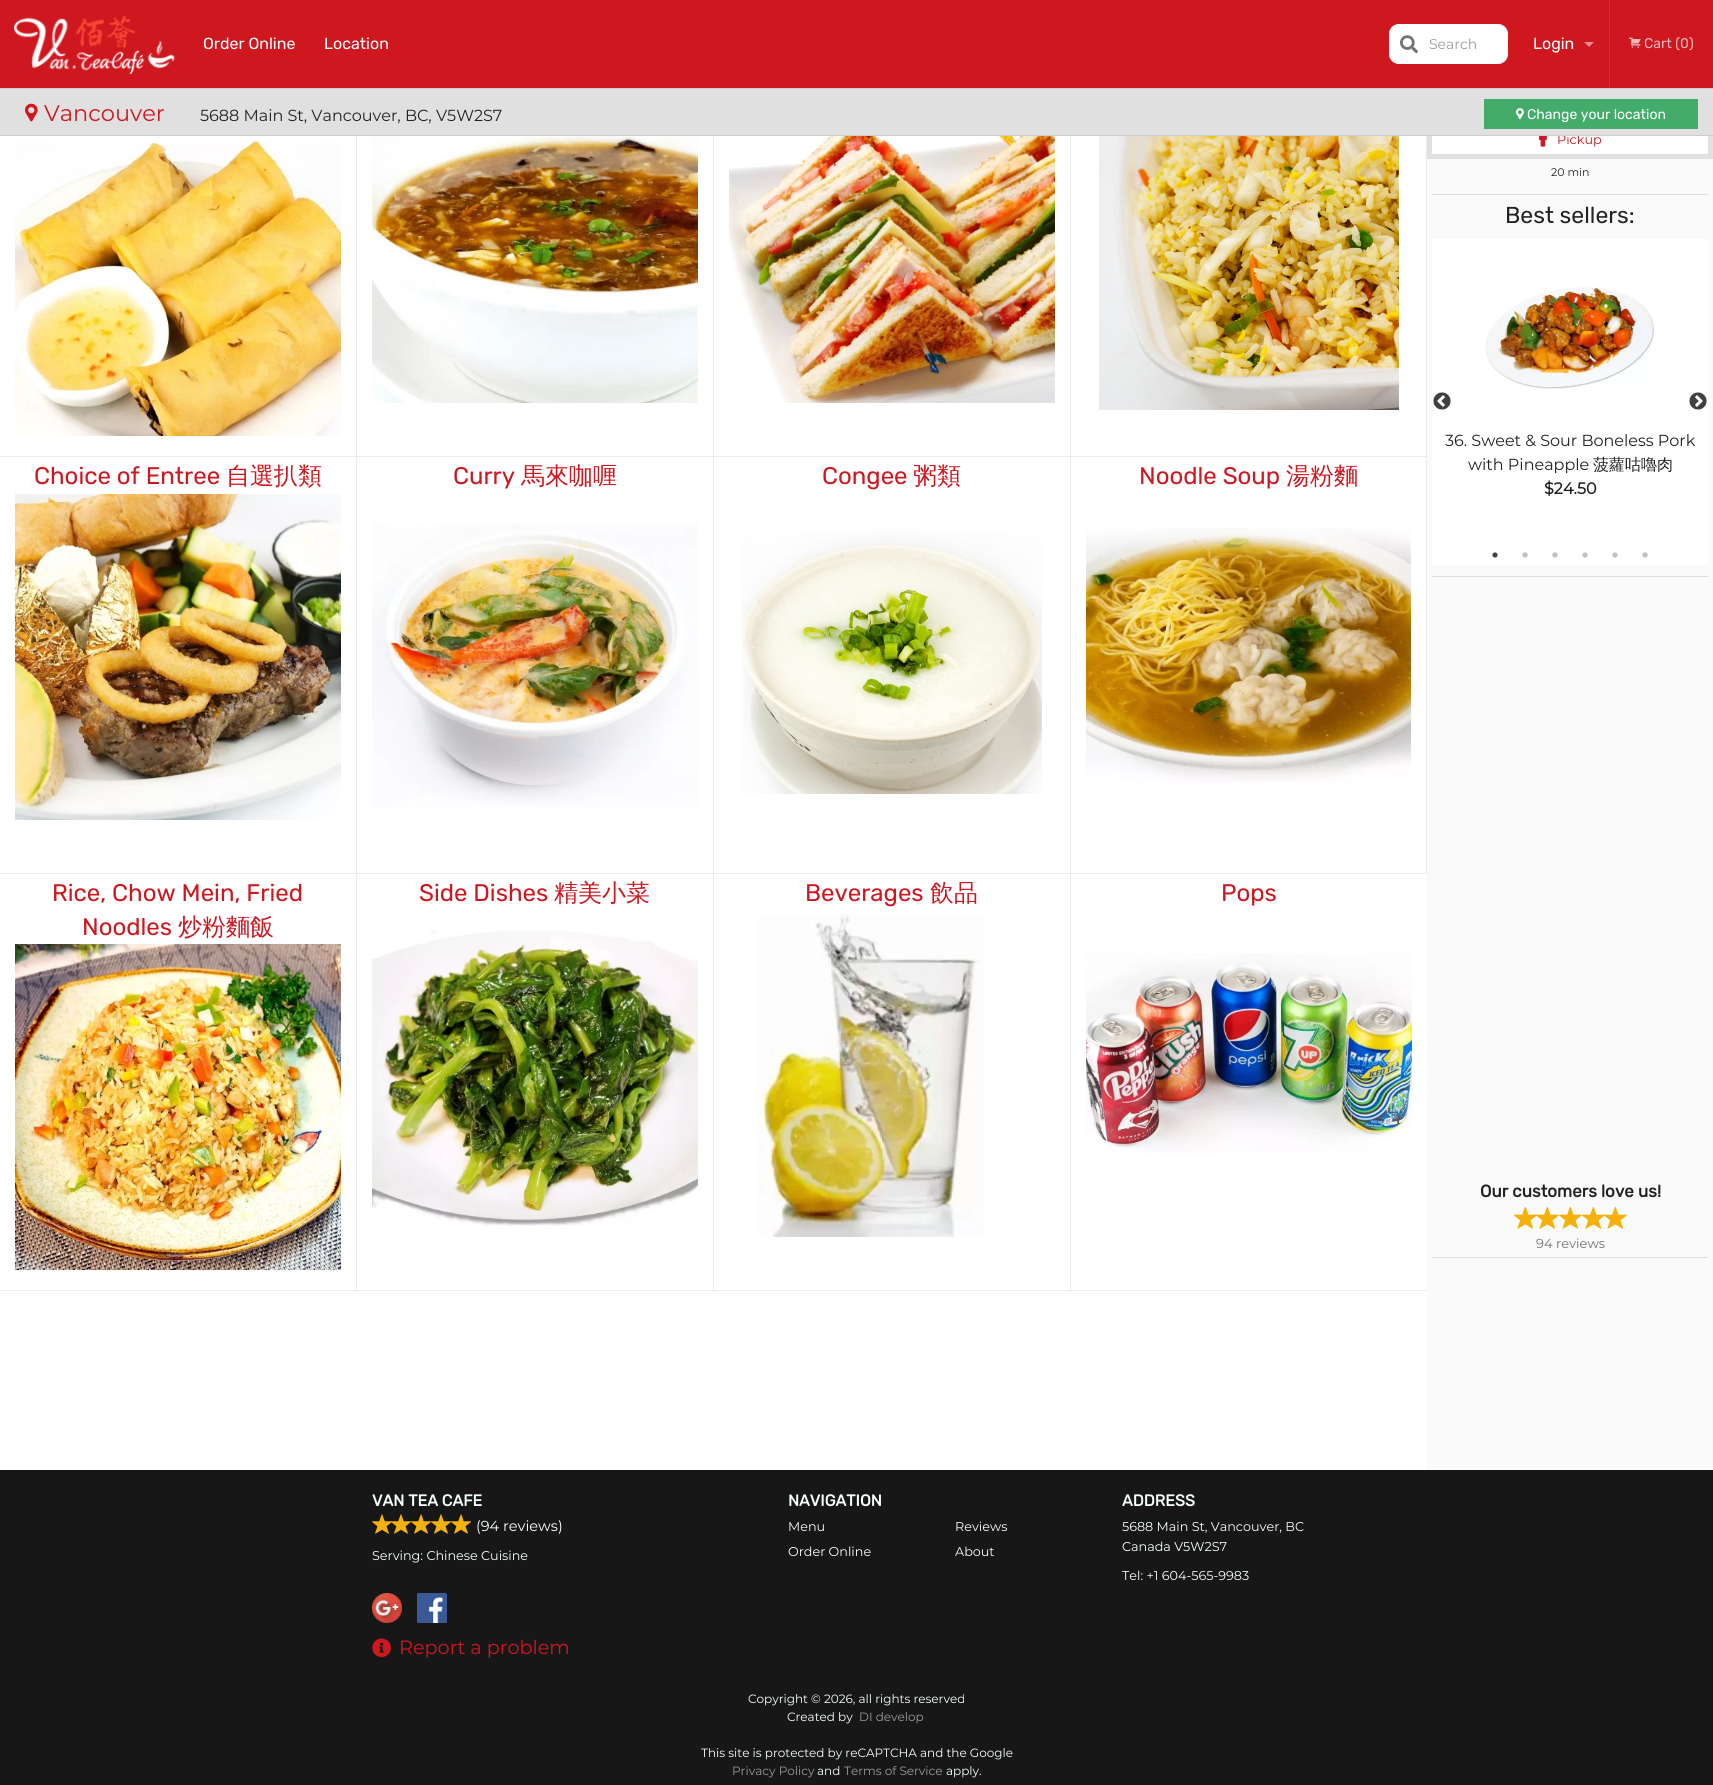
#include <cairo/cairo.h>
#include <math.h>
#include <stddef.h>

typedef struct { double x, y; const char *s; } line_t;
typedef struct { double x, y, w, h; unsigned color; } box_t;
static cairo_t *cr;

static void rgb(unsigned color)
{
	cairo_set_source_rgb(cr, (color >> 16) / 255.0, (color >> 8 & 255) / 255.0, (color & 255) / 255.0);
}

static void rrect(double x, double y, double w, double h, double r)
{
	cairo_new_sub_path(cr);
	cairo_arc(cr, x + w - r, y + h - r, r, 0, M_PI / 2);
	cairo_arc(cr, x + r, y + h - r, r, M_PI / 2, M_PI);
	cairo_arc(cr, x + r, y + r, r, M_PI, 1.5 * M_PI);
	cairo_arc(cr, x + w - r, y + r, r, 1.5 * M_PI, 2 * M_PI);
	cairo_close_path(cr);
}

static void image(const char *path, double x, double y, double w, double h)
{
	cairo_surface_t *image = cairo_image_surface_create_from_png(path);
	cairo_save(cr);
	cairo_set_source_surface(cr, image, x, y);
	cairo_rectangle(cr, x, y, w, h);
	cairo_fill(cr);
	cairo_restore(cr);
	cairo_surface_destroy(image);
}

int main(void) {
	cairo_surface_t *surface = cairo_image_surface_create(CAIRO_FORMAT_RGB24, 1713, 1785);
	cr = cairo_create(surface);
	cairo_font_options_t *options = cairo_font_options_create();
	cairo_font_options_set_hint_metrics(options, CAIRO_HINT_METRICS_OFF);
	cairo_font_options_set_hint_style(options, CAIRO_HINT_STYLE_NONE);
	cairo_set_font_options(cr, options);
	cairo_set_miter_limit(cr, 4);
	rgb(0xffffff);
	cairo_paint(cr);
	rgb(0xcf171f);
	cairo_rectangle(cr, 0, 0, 1713, 88);
	cairo_fill(cr);
	image("img/1.png", 14, 16, 161, 58);
	rgb(0xffffff);
	rrect(1389.5, 24.5, 118, 39, 9.5);
	cairo_fill_preserve(cr);
	cairo_set_line_width(cr, 1);
	cairo_stroke(cr);
	image("img/2.png", 1400, 35, 18, 19);
	rgb(0xe78b8f);
	cairo_new_path(cr);
	cairo_move_to(cr, 1584, 42);
	cairo_line_to(cr, 1594, 42);
	cairo_line_to(cr, 1589, 47);
	cairo_close_path(cr);
	cairo_fill(cr);
	rgb(0xe7242c);
	cairo_rectangle(cr, 1609, 0, 1, 88);
	cairo_fill(cr);
	image("img/3.png", 1629, 37, 12, 11);
	{
		static const box_t items[] = {
			{0, 88, 1713, 1, 0xcccccc},
			{356, 136, 1, 1155, 0xececec},
			{0, 456, 357, 1, 0xececec},
		};
		for (size_t i = 0; i < sizeof items / sizeof *items; i++) {
			rgb(items[i].color);
			cairo_rectangle(cr, items[i].x, items[i].y, items[i].w, items[i].h);
			cairo_fill(cr);
		}
	}
	image("img/6.png", 15, 140, 326, 296);
	cairo_rectangle(cr, 713, 136, 1, 1155);
	cairo_fill(cr);
	cairo_rectangle(cr, 357, 456, 357, 1);
	cairo_fill(cr);
	image("img/7.png", 372, 136, 326, 267);
	cairo_rectangle(cr, 1070, 136, 1, 1155);
	cairo_fill(cr);
	cairo_rectangle(cr, 714, 456, 357, 1);
	cairo_fill(cr);
	image("img/8.png", 729, 136, 326, 267);
	cairo_rectangle(cr, 1426, 136, 1, 738);
	cairo_fill(cr);
	cairo_rectangle(cr, 1071, 456, 356, 1);
	cairo_fill(cr);
	image("img/9.png", 1099, 136, 300, 274);
	cairo_rectangle(cr, 0, 873, 1427, 1);
	cairo_fill(cr);
	image("img/10.png", 15, 494, 326, 326);
	image("img/11.png", 372, 523, 326, 286);
	image("img/12.png", 742, 530, 300, 264);
	image("img/13.png", 1086, 528, 325, 255);
	cairo_rectangle(cr, 0, 1290, 1427, 1);
	cairo_fill(cr);
	image("img/14.png", 15, 944, 326, 326);
	image("img/15.png", 372, 930, 326, 296);
	image("img/16.png", 758, 914, 226, 323);
	image("img/17.png", 1086, 953, 326, 200);
	{
		static const box_t items[] = {
			{1427, 159, 286, 1311, 0xfafafa},
			{1427, 136, 286, 23, 0xe1e1e1},
			{1432, 136, 276, 18, 0xffffff},
		};
		for (size_t i = 0; i < sizeof items / sizeof *items; i++) {
			rgb(items[i].color);
			cairo_rectangle(cr, items[i].x, items[i].y, items[i].w, items[i].h);
			cairo_fill(cr);
		}
	}
	cairo_rectangle(cr, 1431.5, 121.5, 277, 33);
	rgb(0xe1e1e1);
	cairo_stroke(cr);
	image("img/18.png", 1539, 136, 8, 11);
	rgb(0xdddddd);
	cairo_rectangle(cr, 1432, 194, 276, 1);
	cairo_fill(cr);
	rgb(0xffffff);
	cairo_rectangle(cr, 1432, 239, 276, 326);
	cairo_fill(cr);
	image("img/19.png", 1433, 392, 18, 18);
	image("img/20.png", 1689, 392, 18, 18);
	image("img/21.png", 1485, 286, 170, 103);
	image("img/22.png", 1492, 552, 6, 6);
	image("img/23.png", 1522, 552, 6, 6);
	image("img/23.png", 1552, 552, 6, 6);
	image("img/23.png", 1582, 552, 6, 6);
	image("img/23.png", 1612, 552, 6, 6);
	image("img/23.png", 1642, 552, 6, 6);
	rgb(0xdddddd);
	cairo_rectangle(cr, 1432, 576, 276, 1);
	cairo_fill(cr);
	image("img/24.png", 1514, 1206, 23, 23);
	image("img/25.png", 1536, 1206, 23, 23);
	image("img/24.png", 1559, 1206, 23, 23);
	image("img/24.png", 1582, 1206, 23, 23);
	image("img/25.png", 1604, 1206, 23, 23);
	cairo_rectangle(cr, 1432, 1257, 276, 1);
	cairo_fill(cr);
	rgb(0x171717);
	cairo_rectangle(cr, 0, 1470, 1713, 315);
	cairo_fill(cr);
	image("img/26.png", 372, 1514, 20, 20);
	image("img/27.png", 391, 1514, 20, 20);
	image("img/26.png", 411, 1514, 20, 20);
	image("img/26.png", 431, 1514, 20, 20);
	image("img/26.png", 451, 1514, 20, 20);
	image("img/28.png", 372, 1593, 30, 30);
	image("img/29.png", 417, 1593, 30, 30);
	image("img/30.png", 372, 1638, 19, 20);
	cairo_select_font_face(cr, "Rubik Light", CAIRO_FONT_SLANT_NORMAL, CAIRO_FONT_WEIGHT_NORMAL);
	cairo_set_font_size(cr, 16);
	rgb(0xffffff);
	cairo_move_to(cr, 203, 49);
	cairo_show_text(cr, "Order Online");
	cairo_move_to(cr, 324, 49);
	cairo_show_text(cr, "Location");
	cairo_select_font_face(cr, "Montserrat Thin", CAIRO_FONT_SLANT_NORMAL, CAIRO_FONT_WEIGHT_NORMAL);
	cairo_set_font_size(cr, 14);
	rgb(0x9b9b9b);
	cairo_move_to(cr, 1429, 49);
	cairo_show_text(cr, "Search");
	cairo_select_font_face(cr, "Rubik Light", CAIRO_FONT_SLANT_NORMAL, CAIRO_FONT_WEIGHT_NORMAL);
	cairo_set_font_size(cr, 16);
	rgb(0xffffff);
	cairo_move_to(cr, 1533, 49);
	cairo_show_text(cr, "Login");
	cairo_set_font_size(cr, 14);
	rgb(0xf1b9bc);
	cairo_move_to(cr, 1644, 48);
	cairo_show_text(cr, "Cart (0)");
	cairo_set_font_size(cr, 24);
	rgb(0xcf171f);
	cairo_move_to(cr, 34, 484);
	cairo_show_text(cr, "Choice of Entree");
	cairo_select_font_face(cr, "WenQuanYi Zen Hei Medium", CAIRO_FONT_SLANT_NORMAL, CAIRO_FONT_WEIGHT_NORMAL);
	cairo_move_to(cr, 226, 484);
	cairo_show_text(cr, "自選扒類");
	cairo_select_font_face(cr, "Rubik Light", CAIRO_FONT_SLANT_NORMAL, CAIRO_FONT_WEIGHT_NORMAL);
	cairo_move_to(cr, 453, 484);
	cairo_show_text(cr, "Curry");
	cairo_select_font_face(cr, "WenQuanYi Zen Hei Medium", CAIRO_FONT_SLANT_NORMAL, CAIRO_FONT_WEIGHT_NORMAL);
	cairo_move_to(cr, 521, 484);
	cairo_show_text(cr, "馬來咖喱");
	cairo_select_font_face(cr, "Rubik Light", CAIRO_FONT_SLANT_NORMAL, CAIRO_FONT_WEIGHT_NORMAL);
	cairo_move_to(cr, 822, 484);
	cairo_show_text(cr, "Congee");
	cairo_select_font_face(cr, "WenQuanYi Zen Hei Medium", CAIRO_FONT_SLANT_NORMAL, CAIRO_FONT_WEIGHT_NORMAL);
	cairo_move_to(cr, 913, 484);
	cairo_show_text(cr, "粥類");
	cairo_select_font_face(cr, "Rubik Light", CAIRO_FONT_SLANT_NORMAL, CAIRO_FONT_WEIGHT_NORMAL);
	cairo_move_to(cr, 1139, 484);
	cairo_show_text(cr, "Noodle Soup");
	cairo_select_font_face(cr, "WenQuanYi Zen Hei Medium", CAIRO_FONT_SLANT_NORMAL, CAIRO_FONT_WEIGHT_NORMAL);
	cairo_move_to(cr, 1286, 484);
	cairo_show_text(cr, "湯粉麵");
	cairo_select_font_face(cr, "Rubik Light", CAIRO_FONT_SLANT_NORMAL, CAIRO_FONT_WEIGHT_NORMAL);
	cairo_move_to(cr, 52, 901);
	cairo_show_text(cr, "Rice, Chow Mein, Fried");
	cairo_move_to(cr, 82, 935);
	cairo_show_text(cr, "Noodles");
	cairo_select_font_face(cr, "WenQuanYi Zen Hei Medium", CAIRO_FONT_SLANT_NORMAL, CAIRO_FONT_WEIGHT_NORMAL);
	cairo_move_to(cr, 178, 935);
	cairo_show_text(cr, "炒粉麵飯");
	cairo_select_font_face(cr, "Rubik Light", CAIRO_FONT_SLANT_NORMAL, CAIRO_FONT_WEIGHT_NORMAL);
	cairo_move_to(cr, 419, 901);
	cairo_show_text(cr, "Side Dishes");
	cairo_select_font_face(cr, "WenQuanYi Zen Hei Medium", CAIRO_FONT_SLANT_NORMAL, CAIRO_FONT_WEIGHT_NORMAL);
	cairo_move_to(cr, 554, 901);
	cairo_show_text(cr, "精美小菜");
	cairo_select_font_face(cr, "Rubik Light", CAIRO_FONT_SLANT_NORMAL, CAIRO_FONT_WEIGHT_NORMAL);
	cairo_move_to(cr, 805, 901);
	cairo_show_text(cr, "Beverages");
	cairo_select_font_face(cr, "WenQuanYi Zen Hei Medium", CAIRO_FONT_SLANT_NORMAL, CAIRO_FONT_WEIGHT_NORMAL);
	cairo_move_to(cr, 930, 901);
	cairo_show_text(cr, "飲品");
	cairo_select_font_face(cr, "Rubik Light", CAIRO_FONT_SLANT_NORMAL, CAIRO_FONT_WEIGHT_NORMAL);
	cairo_move_to(cr, 1221, 901);
	cairo_show_text(cr, "Pops");
	cairo_select_font_face(cr, "Montserrat Thin", CAIRO_FONT_SLANT_NORMAL, CAIRO_FONT_WEIGHT_NORMAL);
	cairo_set_font_size(cr, 12.75);
	cairo_move_to(cr, 1557, 144);
	cairo_show_text(cr, "Pickup");
	rgb(0xe0e0e0);
	cairo_rectangle(cr, 0, 89, 1713, 46);
	cairo_fill(cr);
	rgb(0x43ac6a);
	cairo_rectangle(cr, 1484, 99, 214, 30);
	cairo_fill(cr);
	cairo_select_font_face(cr, "Rubik Light", CAIRO_FONT_SLANT_NORMAL, CAIRO_FONT_WEIGHT_NORMAL);
	cairo_set_font_size(cr, 14);
	rgb(0xffffff);
	cairo_move_to(cr, 1527, 119);
	cairo_show_text(cr, "Change your location");
	image("img/5.png", 1516, 108, 8, 12);
	cairo_select_font_face(cr, "Montserrat Thin", CAIRO_FONT_SLANT_NORMAL, CAIRO_FONT_WEIGHT_NORMAL);
	cairo_set_font_size(cr, 16);
	rgb(0x222222);
	cairo_move_to(cr, 200, 121);
	cairo_show_text(cr, "5688 Main St, Vancouver, BC, V5W2S7");
	cairo_set_font_size(cr, 22.5);
	rgb(0xcf171f);
	cairo_move_to(cr, 44, 121);
	cairo_show_text(cr, "Vancouver");
	image("img/4.png", 25, 103, 13, 19);
	rgb(0xcccccc);
	cairo_rectangle(cr, 0, 135, 1713, 1);
	cairo_fill(cr);
	cairo_set_font_size(cr, 11);
	rgb(0x222222);
	cairo_move_to(cr, 1551, 176);
	cairo_show_text(cr, "20 min");
	cairo_select_font_face(cr, "Rubik Light", CAIRO_FONT_SLANT_NORMAL, CAIRO_FONT_WEIGHT_NORMAL);
	cairo_set_font_size(cr, 23);
	cairo_move_to(cr, 1505, 223);
	cairo_show_text(cr, "Best sellers:");
	cairo_select_font_face(cr, "Montserrat Thin", CAIRO_FONT_SLANT_NORMAL, CAIRO_FONT_WEIGHT_NORMAL);
	cairo_set_font_size(cr, 16);
	cairo_move_to(cr, 1445, 446);
	cairo_show_text(cr, "36. Sweet & Sour Boneless Pork");
	cairo_move_to(cr, 1468, 470);
	cairo_show_text(cr, "with Pineapple");
	cairo_select_font_face(cr, "WenQuanYi Zen Hei Medium", CAIRO_FONT_SLANT_NORMAL, CAIRO_FONT_WEIGHT_NORMAL);
	cairo_move_to(cr, 1593, 470);
	cairo_show_text(cr, "菠蘿咕嚕肉");
	cairo_select_font_face(cr, "Montserrat", CAIRO_FONT_SLANT_NORMAL, CAIRO_FONT_WEIGHT_BOLD);
	cairo_move_to(cr, 1544, 494);
	cairo_show_text(cr, "$24.50");
	cairo_select_font_face(cr, "Rubik", CAIRO_FONT_SLANT_NORMAL, CAIRO_FONT_WEIGHT_BOLD);
	cairo_set_font_size(cr, 17);
	cairo_move_to(cr, 1480, 1197);
	cairo_show_text(cr, "Our customers love us!");
	cairo_select_font_face(cr, "Montserrat Thin", CAIRO_FONT_SLANT_NORMAL, CAIRO_FONT_WEIGHT_NORMAL);
	cairo_set_font_size(cr, 13);
	rgb(0x737373);
	cairo_move_to(cr, 1536, 1248);
	cairo_show_text(cr, "94 reviews");
	cairo_select_font_face(cr, "Rubik", CAIRO_FONT_SLANT_NORMAL, CAIRO_FONT_WEIGHT_BOLD);
	cairo_set_font_size(cr, 16);
	rgb(0xf7ffff);
	cairo_move_to(cr, 372, 1506);
	cairo_show_text(cr, "VAN TEA CAFE");
	cairo_select_font_face(cr, "Montserrat Thin", CAIRO_FONT_SLANT_NORMAL, CAIRO_FONT_WEIGHT_NORMAL);
	cairo_set_font_size(cr, 14.5);
	cairo_move_to(cr, 476, 1531);
	cairo_show_text(cr, "(94 reviews)");
	cairo_set_font_size(cr, 12.75);
	cairo_move_to(cr, 372, 1560);
	cairo_show_text(cr, "Serving: Chinese Cuisine");
	cairo_set_font_size(cr, 19.25);
	rgb(0xcf171f);
	cairo_move_to(cr, 399, 1654);
	cairo_show_text(cr, "Report a problem");
	cairo_select_font_face(cr, "Rubik", CAIRO_FONT_SLANT_NORMAL, CAIRO_FONT_WEIGHT_BOLD);
	cairo_set_font_size(cr, 16);
	rgb(0xf7ffff);
	cairo_move_to(cr, 788, 1506);
	cairo_show_text(cr, "NAVIGATION");
	cairo_select_font_face(cr, "Montserrat Thin", CAIRO_FONT_SLANT_NORMAL, CAIRO_FONT_WEIGHT_NORMAL);
	cairo_set_font_size(cr, 12.75);
	{
		static const line_t items[] = {
			{788, 1531, "Menu"},
			{788, 1556, "Order Online"},
			{955, 1531, "Reviews"},
			{955, 1556, "About"},
		};
		for (size_t i = 0; i < sizeof items / sizeof *items; i++) {
			cairo_move_to(cr, items[i].x, items[i].y);
			cairo_show_text(cr, items[i].s);
		}
	}
	cairo_select_font_face(cr, "Rubik", CAIRO_FONT_SLANT_NORMAL, CAIRO_FONT_WEIGHT_BOLD);
	cairo_set_font_size(cr, 16);
	cairo_move_to(cr, 1122, 1506);
	cairo_show_text(cr, "ADDRESS");
	cairo_select_font_face(cr, "Montserrat Thin", CAIRO_FONT_SLANT_NORMAL, CAIRO_FONT_WEIGHT_NORMAL);
	cairo_set_font_size(cr, 12.75);
	{
		static const line_t items[] = {
			{1122, 1531, "5688 Main St, Vancouver, BC"},
			{1122, 1551, "Canada V5W2S7"},
			{1122, 1580, "Tel: +1 604-565-9983"},
		};
		for (size_t i = 0; i < sizeof items / sizeof *items; i++) {
			cairo_move_to(cr, items[i].x, items[i].y);
			cairo_show_text(cr, items[i].s);
		}
	}
	cairo_set_font_size(cr, 12);
	cairo_move_to(cr, 748, 1703);
	cairo_show_text(cr, "Copyright © 2026, all rights reserved");
	cairo_move_to(cr, 787, 1721);
	cairo_show_text(cr, "Created by");
	rgb(0x9b9b9b);
	cairo_move_to(cr, 859, 1721);
	cairo_show_text(cr, "DI develop");
	rgb(0xf7ffff);
	cairo_move_to(cr, 701, 1757);
	cairo_show_text(cr, "This site is protected by reCAPTCHA and the Google");
	rgb(0x9b9b9b);
	cairo_move_to(cr, 732, 1775);
	cairo_show_text(cr, "Privacy Policy");
	rgb(0xf7ffff);
	cairo_move_to(cr, 817, 1775);
	cairo_show_text(cr, "and");
	rgb(0x9b9b9b);
	cairo_move_to(cr, 844, 1775);
	cairo_show_text(cr, "Terms of Service");
	rgb(0xf7ffff);
	cairo_move_to(cr, 946, 1775);
	cairo_show_text(cr, "apply.");
	cairo_surface_write_to_png(surface, "page.png");
	cairo_font_options_destroy(options);
	cairo_destroy(cr);
	cairo_surface_destroy(surface);
	return 0;
}
